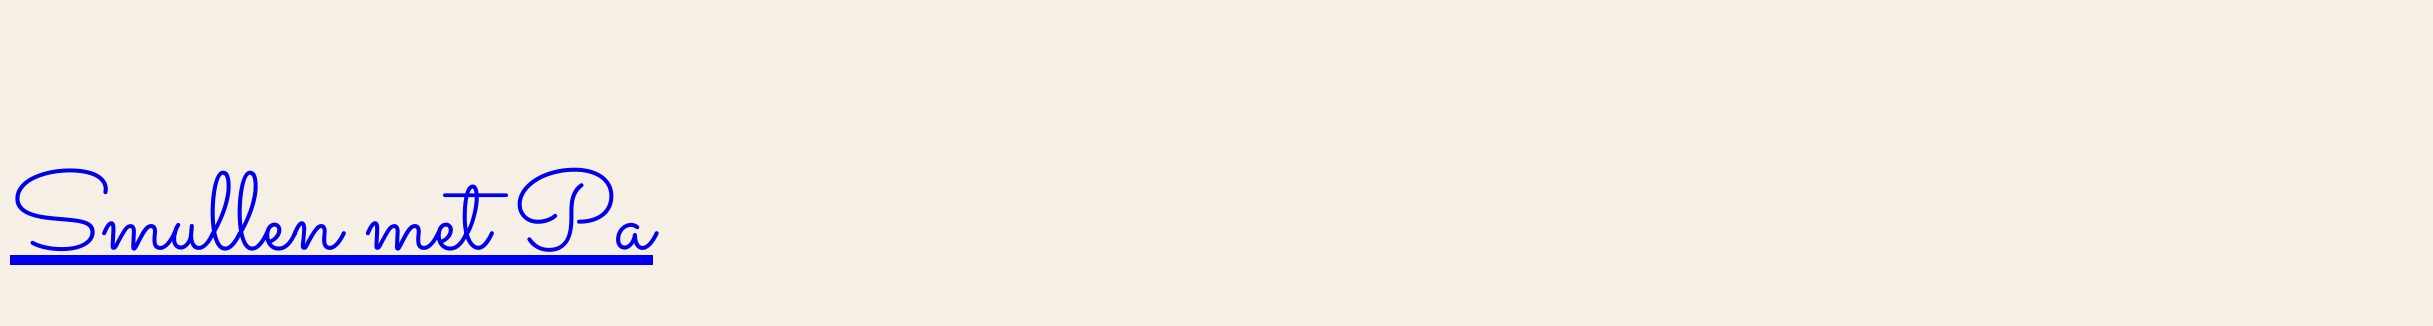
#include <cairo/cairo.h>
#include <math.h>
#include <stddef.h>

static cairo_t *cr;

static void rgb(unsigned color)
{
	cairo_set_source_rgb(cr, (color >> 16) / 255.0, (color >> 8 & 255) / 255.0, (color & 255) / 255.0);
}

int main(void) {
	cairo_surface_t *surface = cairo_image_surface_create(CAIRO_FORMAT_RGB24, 2433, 326);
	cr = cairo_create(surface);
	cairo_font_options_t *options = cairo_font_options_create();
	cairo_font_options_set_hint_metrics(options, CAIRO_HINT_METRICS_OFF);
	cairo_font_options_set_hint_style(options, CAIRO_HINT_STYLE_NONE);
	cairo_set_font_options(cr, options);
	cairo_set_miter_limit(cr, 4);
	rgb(0xf6efe5);
	cairo_paint(cr);
	rgb(0x0000ee);
	cairo_rectangle(cr, 10, 255, 643, 10);
	cairo_fill(cr);
	cairo_select_font_face(cr, "Sacramento", CAIRO_FONT_SLANT_NORMAL, CAIRO_FONT_WEIGHT_NORMAL);
	cairo_set_font_size(cr, 110);
	cairo_move_to(cr, 10, 249);
	cairo_show_text(cr, "Smullen met Pa");
	cairo_surface_write_to_png(surface, "page.png");
	cairo_font_options_destroy(options);
	cairo_destroy(cr);
	cairo_surface_destroy(surface);
	return 0;
}
